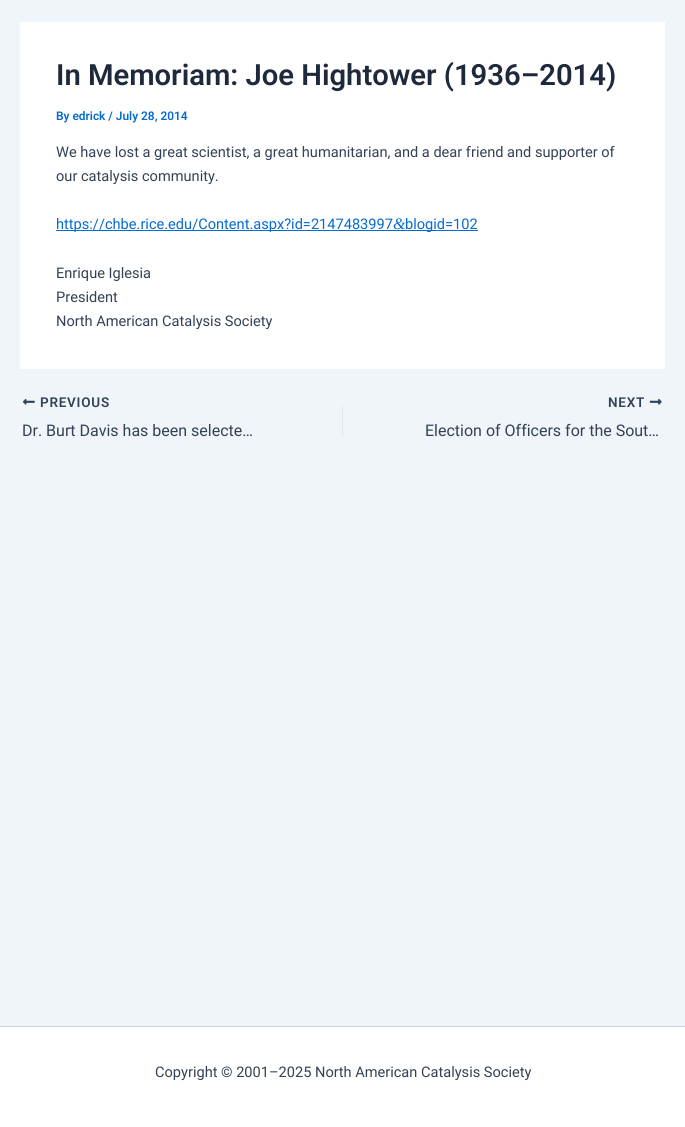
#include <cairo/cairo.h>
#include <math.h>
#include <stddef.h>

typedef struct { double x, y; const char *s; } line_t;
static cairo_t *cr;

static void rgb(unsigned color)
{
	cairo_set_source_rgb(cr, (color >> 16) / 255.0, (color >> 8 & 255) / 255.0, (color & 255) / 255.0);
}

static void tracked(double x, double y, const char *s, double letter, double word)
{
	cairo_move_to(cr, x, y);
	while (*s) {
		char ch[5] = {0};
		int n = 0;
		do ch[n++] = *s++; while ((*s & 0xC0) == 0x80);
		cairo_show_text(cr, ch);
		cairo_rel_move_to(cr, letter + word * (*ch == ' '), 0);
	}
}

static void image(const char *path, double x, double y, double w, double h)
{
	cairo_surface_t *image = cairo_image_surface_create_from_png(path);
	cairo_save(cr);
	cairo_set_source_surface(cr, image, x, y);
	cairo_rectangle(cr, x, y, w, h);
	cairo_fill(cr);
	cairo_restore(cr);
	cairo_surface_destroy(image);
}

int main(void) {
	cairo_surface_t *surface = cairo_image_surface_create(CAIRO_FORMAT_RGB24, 685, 1127);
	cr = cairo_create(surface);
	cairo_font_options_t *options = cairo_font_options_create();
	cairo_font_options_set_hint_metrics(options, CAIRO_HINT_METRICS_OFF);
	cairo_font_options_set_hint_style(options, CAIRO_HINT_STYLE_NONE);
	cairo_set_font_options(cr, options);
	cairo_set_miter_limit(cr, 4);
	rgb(0xf0f5fa);
	cairo_paint(cr);
	rgb(0xffffff);
	cairo_rectangle(cr, 20, 22, 645, 347);
	cairo_fill(cr);
	rgb(0x046bd2);
	cairo_rectangle(cr, 56, 230, 422, 1);
	cairo_fill(cr);
	image("img/1.png", 22, 398, 13, 7);
	rgb(0xe1e8ed);
	cairo_rectangle(cr, 342, 406, 1, 30);
	cairo_fill(cr);
	image("img/2.png", 649, 398, 13, 7);
	rgb(0xffffff);
	cairo_rectangle(cr, 0, 1027, 685, 100);
	cairo_fill(cr);
	rgb(0xd1d5db);
	cairo_rectangle(cr, 0, 1026, 685, 1);
	cairo_fill(cr);
	cairo_select_font_face(cr, "Roboto SemiBold", CAIRO_FONT_SLANT_NORMAL, CAIRO_FONT_WEIGHT_NORMAL);
	cairo_set_font_size(cr, 29.2);
	rgb(0x1e293b);
	cairo_move_to(cr, 56, 85);
	cairo_show_text(cr, "In Memoriam: Joe Hightower (1936–2014)");
	cairo_set_font_size(cr, 11.9);
	rgb(0x046bd2);
	cairo_move_to(cr, 56, 120);
	cairo_show_text(cr, "By edrick / July 28, 2014");
	cairo_select_font_face(cr, "Roboto", CAIRO_FONT_SLANT_NORMAL, CAIRO_FONT_WEIGHT_NORMAL);
	cairo_set_font_size(cr, 14.6);
	rgb(0x334155);
	cairo_move_to(cr, 56, 157);
	cairo_show_text(cr, "We have lost a great scientist, a great humanitarian, and a dear friend and supporter of");
	cairo_move_to(cr, 56, 181);
	cairo_show_text(cr, "our catalysis community.");
	rgb(0x046bd2);
	cairo_move_to(cr, 56, 229);
	cairo_show_text(cr, "https://chbe.rice.edu/Content.aspx?id=2147483997");
	cairo_select_font_face(cr, "Liberation Serif", CAIRO_FONT_SLANT_ITALIC, CAIRO_FONT_WEIGHT_NORMAL);
	cairo_set_font_size(cr, 16);
	cairo_move_to(cr, 393, 229);
	cairo_show_text(cr, "&");
	cairo_select_font_face(cr, "Roboto", CAIRO_FONT_SLANT_NORMAL, CAIRO_FONT_WEIGHT_NORMAL);
	cairo_set_font_size(cr, 14.6);
	cairo_move_to(cr, 405, 229);
	cairo_show_text(cr, "blogid=102");
	rgb(0x334155);
	{
		static const line_t items[] = {
			{56, 278, "Enrique Iglesia"},
			{56, 302, "President"},
			{56, 326, "North American Catalysis Society"},
		};
		for (size_t i = 0; i < sizeof items / sizeof *items; i++) {
			cairo_move_to(cr, items[i].x, items[i].y);
			cairo_show_text(cr, items[i].s);
		}
	}
	cairo_select_font_face(cr, "Roboto SemiBold", CAIRO_FONT_SLANT_NORMAL, CAIRO_FONT_WEIGHT_NORMAL);
	cairo_set_font_size(cr, 13.5);
	tracked(40, 407, "PREVIOUS", 0.75, 0);
	cairo_select_font_face(cr, "Roboto", CAIRO_FONT_SLANT_NORMAL, CAIRO_FONT_WEIGHT_NORMAL);
	cairo_set_font_size(cr, 16);
	cairo_move_to(cr, 22, 436);
	cairo_show_text(cr, "Dr. Burt Davis has been selecte…");
	cairo_select_font_face(cr, "Roboto SemiBold", CAIRO_FONT_SLANT_NORMAL, CAIRO_FONT_WEIGHT_NORMAL);
	cairo_set_font_size(cr, 13.5);
	tracked(608, 407, "NEXT", 0.75, 0);
	cairo_select_font_face(cr, "Roboto", CAIRO_FONT_SLANT_NORMAL, CAIRO_FONT_WEIGHT_NORMAL);
	cairo_set_font_size(cr, 16);
	cairo_move_to(cr, 425, 436);
	cairo_show_text(cr, "Election of Officers for the Sout…");
	cairo_set_font_size(cr, 14.6);
	cairo_move_to(cr, 155, 1077);
	cairo_show_text(cr, "Copyright © 2001–2025 North American Catalysis Society");
	cairo_surface_write_to_png(surface, "page.png");
	cairo_font_options_destroy(options);
	cairo_destroy(cr);
	cairo_surface_destroy(surface);
	return 0;
}
